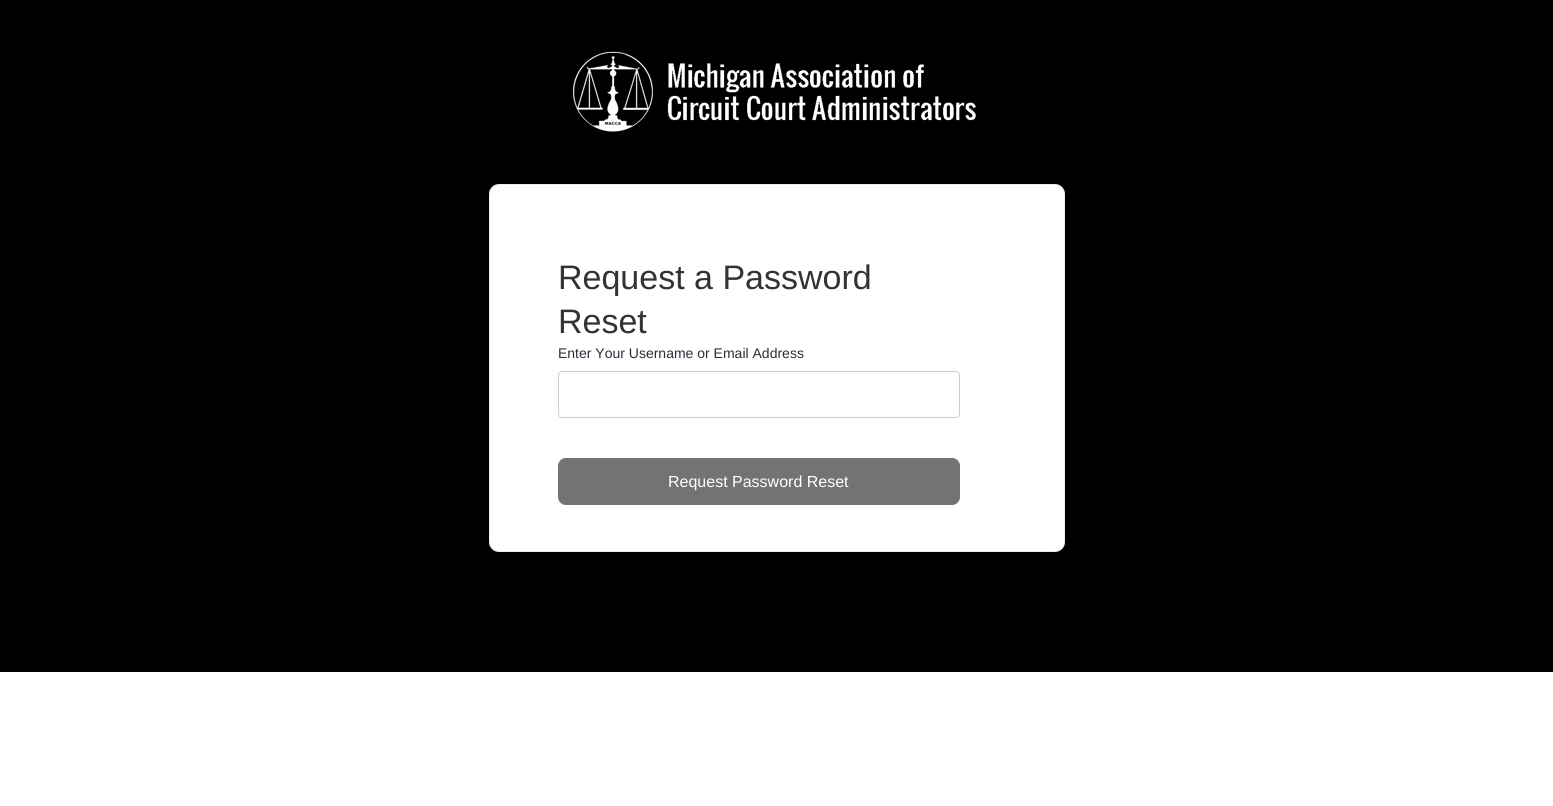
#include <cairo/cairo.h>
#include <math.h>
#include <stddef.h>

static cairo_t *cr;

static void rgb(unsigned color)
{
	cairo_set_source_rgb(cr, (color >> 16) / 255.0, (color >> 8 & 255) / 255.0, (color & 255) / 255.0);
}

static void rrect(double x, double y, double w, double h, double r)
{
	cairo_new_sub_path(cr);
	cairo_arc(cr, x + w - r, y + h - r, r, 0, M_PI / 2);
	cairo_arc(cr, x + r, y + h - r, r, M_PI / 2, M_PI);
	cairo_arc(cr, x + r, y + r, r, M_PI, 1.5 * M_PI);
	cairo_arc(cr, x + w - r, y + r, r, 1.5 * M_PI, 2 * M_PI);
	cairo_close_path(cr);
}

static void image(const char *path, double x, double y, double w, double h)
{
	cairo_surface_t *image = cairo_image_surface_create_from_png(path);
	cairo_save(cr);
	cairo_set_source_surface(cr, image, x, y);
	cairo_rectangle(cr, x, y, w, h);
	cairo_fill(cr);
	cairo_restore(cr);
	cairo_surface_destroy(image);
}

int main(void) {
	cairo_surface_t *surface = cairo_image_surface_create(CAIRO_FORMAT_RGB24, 1553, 806);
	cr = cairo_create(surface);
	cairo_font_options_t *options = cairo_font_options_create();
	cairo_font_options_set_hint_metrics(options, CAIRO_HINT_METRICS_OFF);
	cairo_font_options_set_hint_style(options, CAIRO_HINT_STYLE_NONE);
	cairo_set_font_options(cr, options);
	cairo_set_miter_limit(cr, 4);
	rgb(0xffffff);
	cairo_paint(cr);
	rgb(0x000000);
	cairo_rectangle(cr, 0, 0, 1553, 672);
	cairo_fill(cr);
	image("img/1.png", 573, 51, 403, 81);
	rgb(0xffffff);
	rrect(489, 184, 576, 368, 10);
	cairo_fill(cr);
	rrect(489.5, 184.5, 575, 367, 9.5);
	cairo_set_source_rgba(cr, 0, 0, 0, 0.08);
	cairo_set_line_width(cr, 1);
	cairo_stroke(cr);
	rrect(558.5, 371.5, 401, 46, 3.5);
	rgb(0xcccccc);
	cairo_stroke(cr);
	rgb(0x737373);
	rrect(558.5, 458.5, 401, 46, 7.5);
	cairo_fill_preserve(cr);
	cairo_stroke(cr);
	cairo_select_font_face(cr, "Liberation Sans", CAIRO_FONT_SLANT_NORMAL, CAIRO_FONT_WEIGHT_NORMAL);
	cairo_set_font_size(cr, 34);
	rgb(0x333333);
	cairo_move_to(cr, 558, 289);
	cairo_show_text(cr, "Request a Password");
	cairo_move_to(cr, 558, 333);
	cairo_show_text(cr, "Reset");
	cairo_set_font_size(cr, 14);
	rgb(0x2c2d36);
	cairo_move_to(cr, 558, 358);
	cairo_show_text(cr, "Enter Your Username or Email Address");
	cairo_set_font_size(cr, 16);
	rgb(0xffffff);
	cairo_move_to(cr, 668, 487);
	cairo_show_text(cr, "Request Password Reset");
	cairo_surface_write_to_png(surface, "page.png");
	cairo_font_options_destroy(options);
	cairo_destroy(cr);
	cairo_surface_destroy(surface);
	return 0;
}
